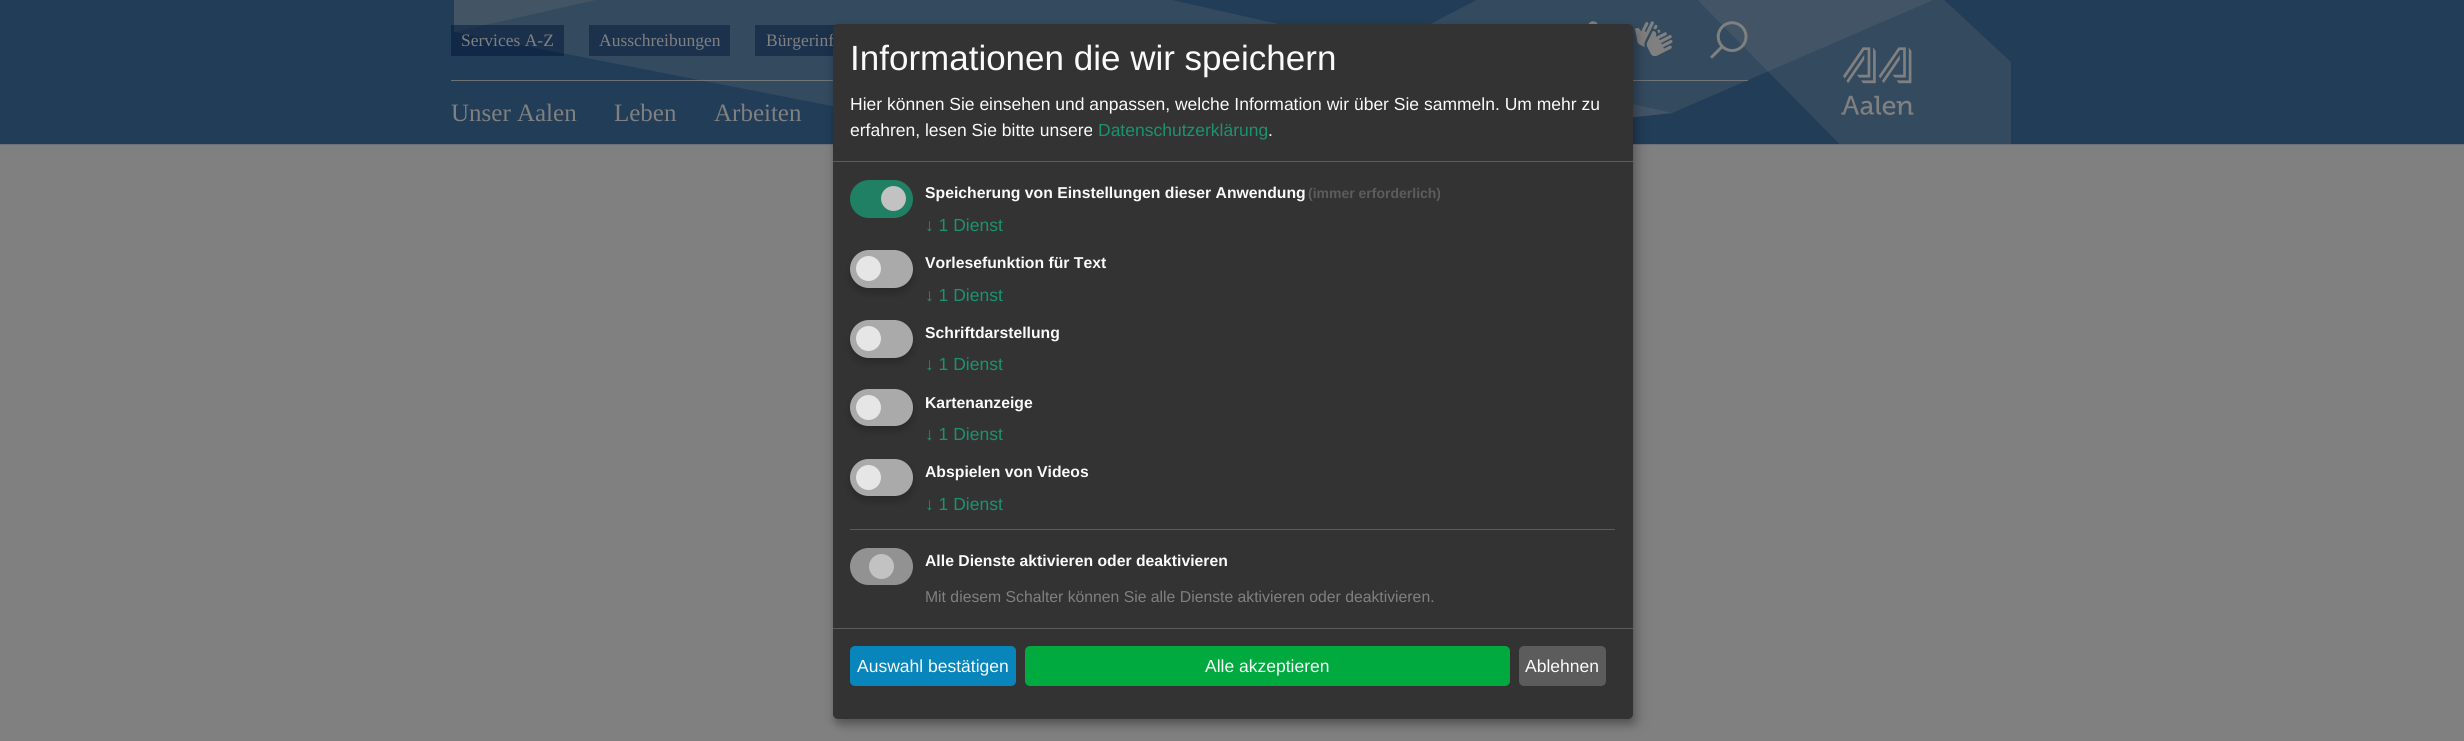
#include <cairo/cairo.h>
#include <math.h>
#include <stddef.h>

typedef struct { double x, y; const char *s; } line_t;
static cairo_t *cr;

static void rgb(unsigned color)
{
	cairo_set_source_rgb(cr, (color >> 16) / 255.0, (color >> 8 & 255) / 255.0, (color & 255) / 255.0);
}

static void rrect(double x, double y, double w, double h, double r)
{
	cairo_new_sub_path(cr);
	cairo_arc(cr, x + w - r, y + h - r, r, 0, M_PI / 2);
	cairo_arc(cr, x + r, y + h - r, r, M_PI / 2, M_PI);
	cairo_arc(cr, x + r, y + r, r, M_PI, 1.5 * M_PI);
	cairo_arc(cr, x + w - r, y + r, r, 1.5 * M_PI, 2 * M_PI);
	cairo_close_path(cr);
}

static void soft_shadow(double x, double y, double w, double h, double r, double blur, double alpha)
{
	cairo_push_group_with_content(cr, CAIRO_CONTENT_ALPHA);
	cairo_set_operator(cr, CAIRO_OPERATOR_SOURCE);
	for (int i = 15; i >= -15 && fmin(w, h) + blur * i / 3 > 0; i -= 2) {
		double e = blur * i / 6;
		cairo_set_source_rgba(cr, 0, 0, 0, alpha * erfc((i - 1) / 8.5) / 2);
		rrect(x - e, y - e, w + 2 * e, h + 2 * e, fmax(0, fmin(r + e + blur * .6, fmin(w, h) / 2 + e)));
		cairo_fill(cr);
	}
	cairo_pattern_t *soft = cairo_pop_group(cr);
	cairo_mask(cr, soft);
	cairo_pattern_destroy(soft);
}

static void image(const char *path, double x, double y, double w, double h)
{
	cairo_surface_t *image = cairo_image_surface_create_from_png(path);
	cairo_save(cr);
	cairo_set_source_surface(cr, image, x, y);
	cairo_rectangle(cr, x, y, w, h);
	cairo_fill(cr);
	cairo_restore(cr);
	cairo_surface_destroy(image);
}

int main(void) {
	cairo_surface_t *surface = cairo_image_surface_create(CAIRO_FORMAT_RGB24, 2464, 741);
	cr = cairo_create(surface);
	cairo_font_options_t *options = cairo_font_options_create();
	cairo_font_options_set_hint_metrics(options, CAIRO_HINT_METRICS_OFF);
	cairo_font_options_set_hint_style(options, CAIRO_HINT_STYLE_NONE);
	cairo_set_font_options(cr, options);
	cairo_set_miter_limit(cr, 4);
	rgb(0x808080);
	cairo_paint(cr);
	rgb(0x213d57);
	cairo_rectangle(cr, 0, 0, 2464, 144);
	cairo_fill(cr);
	rgb(0x6d7278);
	cairo_rectangle(cr, 0, 144, 2464, 1);
	cairo_fill(cr);
	rgb(0x344b5f);
	cairo_new_path(cr);
	cairo_move_to(cr, 454, -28);
	cairo_line_to(cr, 454, 32);
	cairo_line_to(cr, 719, -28);
	cairo_close_path(cr);
	cairo_fill(cr);
	cairo_set_source_rgba(cr, 0.502, 0.502, 0.502, 0.2);
	cairo_new_path(cr);
	cairo_move_to(cr, 1672, 113);
	cairo_line_to(cr, 1153, 169);
	cairo_line_to(cr, 454, 32);
	cairo_line_to(cr, 454, -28);
	cairo_line_to(cr, 1048, -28);
	cairo_close_path(cr);
	cairo_fill(cr);
	cairo_new_path(cr);
	cairo_move_to(cr, 1153, 169);
	cairo_line_to(cr, 1672, 113);
	cairo_line_to(cr, 1940, -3);
	cairo_line_to(cr, 1801, -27);
	cairo_line_to(cr, 1528, -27);
	cairo_close_path(cr);
	cairo_fill(cr);
	cairo_save(cr);
	cairo_rectangle(cr, 451, 0, 1563, 144);
	cairo_clip(cr);
	cairo_new_path(cr);
	cairo_move_to(cr, 1865, 170);
	cairo_line_to(cr, 2011, 170);
	cairo_line_to(cr, 2011, 62);
	cairo_line_to(cr, 1941, -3);
	cairo_line_to(cr, 1801, -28);
	cairo_line_to(cr, 1670, -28);
	cairo_close_path(cr);
	cairo_fill(cr);
	cairo_restore(cr);
	cairo_set_source_rgba(cr, 0.502, 0.502, 0.502, 0.8);
	cairo_rectangle(cr, 451, 80, 1297, 1);
	cairo_fill(cr);
	cairo_set_source_rgba(cr, 0.008, 0.09, 0.224, 0.5);
	cairo_rectangle(cr, 451, 25, 113, 31);
	cairo_fill(cr);
	rgb(0x1b314c);
	cairo_rectangle(cr, 589, 25, 141, 31);
	cairo_fill(cr);
	cairo_rectangle(cr, 755, 25, 80, 31);
	cairo_fill(cr);
	image("img/1.png", 1588, 21, 10, 3);
	image("img/2.png", 1635, 21, 38, 35);
	image("img/3.png", 1710, 21, 38, 38);
	image("img/4.png", 1841, 47, 73, 68);
	rgb(0x000000);
	soft_shadow(839, 30, 800, 695, 5, 6, 0.19);
	soft_shadow(833, 29, 800, 695, 5, 4, 0.2);
	cairo_select_font_face(cr, "Liberation Serif", CAIRO_FONT_SLANT_NORMAL, CAIRO_FONT_WEIGHT_NORMAL);
	cairo_set_font_size(cr, 17.5);
	rgb(0x808080);
	{
		static const line_t items[] = {
			{461, 46, "Services A-Z"},
			{599, 46, "Ausschreibungen"},
			{766, 46, "Bürgerinf"},
		};
		for (size_t i = 0; i < sizeof items / sizeof *items; i++) {
			cairo_move_to(cr, items[i].x, items[i].y);
			cairo_show_text(cr, items[i].s);
		}
	}
	cairo_set_font_size(cr, 25);
	{
		static const line_t items[] = {
			{451, 121, "Unser Aalen"},
			{614, 121, "Leben"},
			{714, 121, "Arbeiten"},
		};
		for (size_t i = 0; i < sizeof items / sizeof *items; i++) {
			cairo_move_to(cr, items[i].x, items[i].y);
			cairo_show_text(cr, items[i].s);
		}
	}
	rgb(0x333333);
	rrect(833, 24, 800, 695, 5);
	cairo_fill(cr);
	rgb(0x5c5c5c);
	cairo_rectangle(cr, 833, 161, 800, 1);
	cairo_fill(cr);
	cairo_select_font_face(cr, "Liberation Sans", CAIRO_FONT_SLANT_NORMAL, CAIRO_FONT_WEIGHT_NORMAL);
	cairo_set_font_size(cr, 35);
	rgb(0xfafafa);
	cairo_move_to(cr, 850, 70);
	cairo_show_text(cr, "Informationen die wir speichern");
	cairo_set_font_size(cr, 17.5);
	cairo_move_to(cr, 850, 110);
	cairo_show_text(cr, "Hier können Sie einsehen und anpassen, welche Information wir über Sie sammeln. Um mehr zu");
	cairo_move_to(cr, 850, 136);
	cairo_show_text(cr, "erfahren, lesen Sie bitte unsere");
	rgb(0x1a936f);
	cairo_move_to(cr, 1098, 136);
	cairo_show_text(cr, "Datenschutzerklärung");
	rgb(0xfafafa);
	cairo_move_to(cr, 1268, 136);
	cairo_show_text(cr, ".");
	rgb(0x1f8063);
	rrect(850, 180, 63, 38, 19);
	cairo_fill(cr);
	rgb(0xc2c2c2);
	cairo_arc(cr, 893.5, 198.5, 12.5, 0, 2 * M_PI);
	cairo_fill(cr);
	cairo_select_font_face(cr, "Liberation Sans", CAIRO_FONT_SLANT_NORMAL, CAIRO_FONT_WEIGHT_BOLD);
	cairo_set_font_size(cr, 15.75);
	rgb(0xfafafa);
	cairo_move_to(cr, 925, 198);
	cairo_show_text(cr, "Speicherung von Einstellungen dieser Anwendung");
	cairo_set_font_size(cr, 14);
	rgb(0x5c5c5c);
	cairo_move_to(cr, 1308, 198);
	cairo_show_text(cr, "(immer erforderlich)");
	cairo_select_font_face(cr, "Liberation Sans", CAIRO_FONT_SLANT_NORMAL, CAIRO_FONT_WEIGHT_NORMAL);
	cairo_set_font_size(cr, 17.5);
	rgb(0x1a936f);
	cairo_move_to(cr, 925, 231);
	cairo_show_text(cr, "↓ 1 Dienst");
	rgb(0x000000);
	soft_shadow(850, 255, 63, 38, 19, 4, 0.2);
	rgb(0xaaaaaa);
	rrect(850, 250, 63, 38, 19);
	cairo_fill(cr);
	rgb(0xe6e6e6);
	cairo_arc(cr, 868.5, 268.5, 12.5, 0, 2 * M_PI);
	cairo_fill(cr);
	cairo_select_font_face(cr, "Liberation Sans", CAIRO_FONT_SLANT_NORMAL, CAIRO_FONT_WEIGHT_BOLD);
	cairo_set_font_size(cr, 15.75);
	rgb(0xfafafa);
	cairo_move_to(cr, 925, 268);
	cairo_show_text(cr, "Vorlesefunktion für Text");
	cairo_select_font_face(cr, "Liberation Sans", CAIRO_FONT_SLANT_NORMAL, CAIRO_FONT_WEIGHT_NORMAL);
	cairo_set_font_size(cr, 17.5);
	rgb(0x1a936f);
	cairo_move_to(cr, 925, 301);
	cairo_show_text(cr, "↓ 1 Dienst");
	rgb(0x000000);
	soft_shadow(850, 325, 63, 38, 19, 4, 0.2);
	rgb(0xaaaaaa);
	rrect(850, 320, 63, 38, 19);
	cairo_fill(cr);
	rgb(0xe6e6e6);
	cairo_arc(cr, 868.5, 338.5, 12.5, 0, 2 * M_PI);
	cairo_fill(cr);
	cairo_select_font_face(cr, "Liberation Sans", CAIRO_FONT_SLANT_NORMAL, CAIRO_FONT_WEIGHT_BOLD);
	cairo_set_font_size(cr, 15.75);
	rgb(0xfafafa);
	cairo_move_to(cr, 925, 338);
	cairo_show_text(cr, "Schriftdarstellung");
	cairo_select_font_face(cr, "Liberation Sans", CAIRO_FONT_SLANT_NORMAL, CAIRO_FONT_WEIGHT_NORMAL);
	cairo_set_font_size(cr, 17.5);
	rgb(0x1a936f);
	cairo_move_to(cr, 925, 370);
	cairo_show_text(cr, "↓ 1 Dienst");
	rgb(0x000000);
	soft_shadow(850, 394, 63, 37, 18.5, 4, 0.2);
	rgb(0xaaaaaa);
	rrect(850, 389, 63, 37, 18.5);
	cairo_fill(cr);
	rgb(0xe6e6e6);
	cairo_arc(cr, 868.5, 407.5, 12.5, 0, 2 * M_PI);
	cairo_fill(cr);
	cairo_select_font_face(cr, "Liberation Sans", CAIRO_FONT_SLANT_NORMAL, CAIRO_FONT_WEIGHT_BOLD);
	cairo_set_font_size(cr, 15.75);
	rgb(0xfafafa);
	cairo_move_to(cr, 925, 408);
	cairo_show_text(cr, "Kartenanzeige");
	cairo_select_font_face(cr, "Liberation Sans", CAIRO_FONT_SLANT_NORMAL, CAIRO_FONT_WEIGHT_NORMAL);
	cairo_set_font_size(cr, 17.5);
	rgb(0x1a936f);
	cairo_move_to(cr, 925, 440);
	cairo_show_text(cr, "↓ 1 Dienst");
	rgb(0x000000);
	soft_shadow(850, 464, 63, 37, 18.5, 4, 0.2);
	rgb(0xaaaaaa);
	rrect(850, 459, 63, 37, 18.5);
	cairo_fill(cr);
	rgb(0xe6e6e6);
	cairo_arc(cr, 868.5, 477.5, 12.5, 0, 2 * M_PI);
	cairo_fill(cr);
	cairo_select_font_face(cr, "Liberation Sans", CAIRO_FONT_SLANT_NORMAL, CAIRO_FONT_WEIGHT_BOLD);
	cairo_set_font_size(cr, 15.75);
	rgb(0xfafafa);
	cairo_move_to(cr, 925, 477);
	cairo_show_text(cr, "Abspielen von Videos");
	cairo_select_font_face(cr, "Liberation Sans", CAIRO_FONT_SLANT_NORMAL, CAIRO_FONT_WEIGHT_NORMAL);
	cairo_set_font_size(cr, 17.5);
	rgb(0x1a936f);
	cairo_move_to(cr, 925, 510);
	cairo_show_text(cr, "↓ 1 Dienst");
	rgb(0x5c5c5c);
	cairo_rectangle(cr, 850, 529, 765, 1);
	cairo_fill(cr);
	rgb(0x929292);
	rrect(850, 548, 63, 37, 18.5);
	cairo_fill(cr);
	rgb(0xc2c2c2);
	cairo_arc(cr, 881.5, 566.5, 12.5, 0, 2 * M_PI);
	cairo_fill(cr);
	cairo_select_font_face(cr, "Liberation Sans", CAIRO_FONT_SLANT_NORMAL, CAIRO_FONT_WEIGHT_BOLD);
	cairo_set_font_size(cr, 15.75);
	rgb(0xfafafa);
	cairo_move_to(cr, 925, 566);
	cairo_show_text(cr, "Alle Dienste aktivieren oder deaktivieren");
	cairo_select_font_face(cr, "Liberation Sans", CAIRO_FONT_SLANT_NORMAL, CAIRO_FONT_WEIGHT_NORMAL);
	rgb(0x808080);
	cairo_move_to(cr, 925, 602);
	cairo_show_text(cr, "Mit diesem Schalter können Sie alle Dienste aktivieren oder deaktivieren.");
	rgb(0x5c5c5c);
	cairo_rectangle(cr, 833, 628, 800, 1);
	cairo_fill(cr);
	rgb(0x0885ba);
	rrect(850, 646, 166, 40, 5);
	cairo_fill(cr);
	cairo_set_font_size(cr, 17.5);
	rgb(0xfafafa);
	cairo_move_to(cr, 857, 672);
	cairo_show_text(cr, "Auswahl bestätigen");
	rgb(0x00aa3e);
	rrect(1025, 646, 485, 40, 5);
	cairo_fill(cr);
	rgb(0xfafafa);
	cairo_move_to(cr, 1205, 672);
	cairo_show_text(cr, "Alle akzeptieren");
	rgb(0x5c5c5c);
	rrect(1519, 646, 87, 40, 5);
	cairo_fill(cr);
	rgb(0xfafafa);
	cairo_move_to(cr, 1525, 672);
	cairo_show_text(cr, "Ablehnen");
	cairo_surface_write_to_png(surface, "page.png");
	cairo_font_options_destroy(options);
	cairo_destroy(cr);
	cairo_surface_destroy(surface);
	return 0;
}
